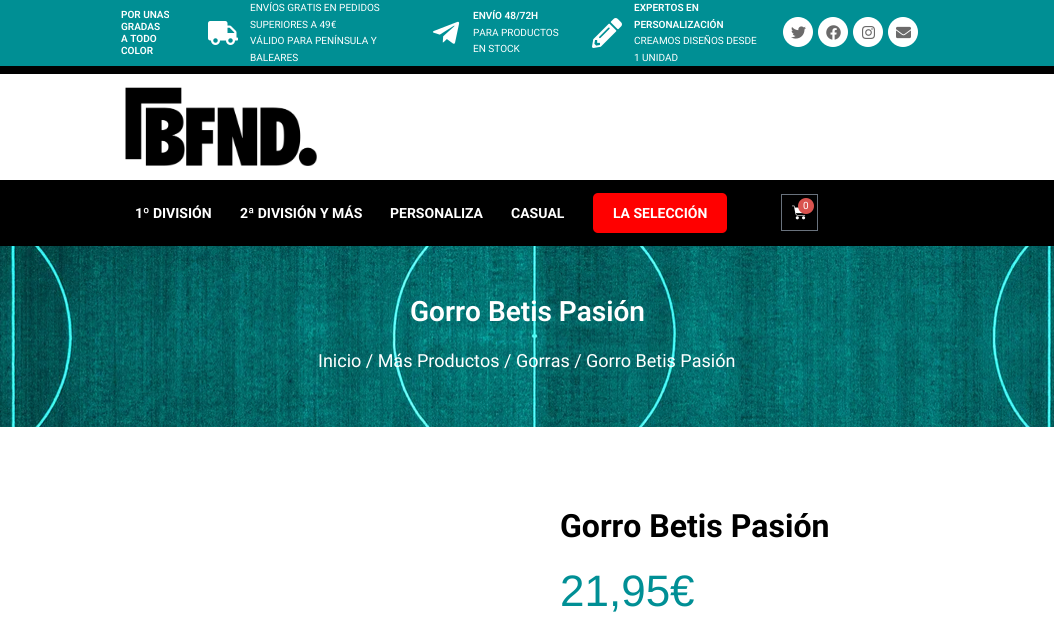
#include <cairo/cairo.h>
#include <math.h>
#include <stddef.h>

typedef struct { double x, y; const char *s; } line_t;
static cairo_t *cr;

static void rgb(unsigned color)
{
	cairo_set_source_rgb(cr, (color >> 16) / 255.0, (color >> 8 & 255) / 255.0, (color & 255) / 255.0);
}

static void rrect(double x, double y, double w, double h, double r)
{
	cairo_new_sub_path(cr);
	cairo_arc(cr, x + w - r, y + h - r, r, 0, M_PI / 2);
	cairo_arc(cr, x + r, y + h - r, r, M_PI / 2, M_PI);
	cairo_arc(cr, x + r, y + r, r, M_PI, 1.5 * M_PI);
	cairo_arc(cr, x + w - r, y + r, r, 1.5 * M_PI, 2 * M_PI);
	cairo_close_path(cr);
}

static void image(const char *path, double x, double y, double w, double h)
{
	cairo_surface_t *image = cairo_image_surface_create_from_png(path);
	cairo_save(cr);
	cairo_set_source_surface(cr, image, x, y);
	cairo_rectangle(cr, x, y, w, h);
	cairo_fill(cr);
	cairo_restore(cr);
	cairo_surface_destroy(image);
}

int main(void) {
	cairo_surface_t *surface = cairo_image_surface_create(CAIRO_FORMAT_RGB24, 1054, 618);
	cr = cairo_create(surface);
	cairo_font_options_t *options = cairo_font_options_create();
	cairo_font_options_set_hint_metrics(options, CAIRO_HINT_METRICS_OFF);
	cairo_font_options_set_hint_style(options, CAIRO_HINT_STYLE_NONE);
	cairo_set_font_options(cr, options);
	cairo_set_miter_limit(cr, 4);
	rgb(0xffffff);
	cairo_paint(cr);
	rgb(0x008f94);
	cairo_rectangle(cr, 0, 0, 1054, 66);
	cairo_fill(cr);
	image("img/1.png", 208, 21, 30, 24);
	image("img/2.png", 432, 21, 28, 23);
	image("img/3.png", 592, 18, 30, 30);
	rgb(0xffffff);
	cairo_arc(cr, 798, 32, 15, 0, 2 * M_PI);
	cairo_fill(cr);
	image("img/4.png", 791, 26, 15, 13);
	cairo_arc(cr, 833, 32, 15, 0, 2 * M_PI);
	cairo_fill(cr);
	image("img/5.png", 826, 25, 15, 15);
	cairo_arc(cr, 868, 32, 15, 0, 2 * M_PI);
	cairo_fill(cr);
	image("img/6.png", 862, 26, 13, 13);
	cairo_arc(cr, 903, 32, 15, 0, 2 * M_PI);
	cairo_fill(cr);
	image("img/7.png", 896, 26, 15, 13);
	rgb(0x000000);
	cairo_rectangle(cr, 0, 66, 1054, 8);
	cairo_fill(cr);
	image("img/8.png", 125, 87, 192, 79);
	cairo_rectangle(cr, 0, 180, 1054, 66);
	cairo_fill(cr);
	rgb(0xff0000);
	rrect(593, 193, 134, 40, 5);
	cairo_fill(cr);
	cairo_rectangle(cr, 781.5, 194.5, 36, 36);
	rgb(0x69727d);
	cairo_set_line_width(cr, 1);
	cairo_stroke(cr);
	image("img/9.png", 792, 205, 14, 15);
	rgb(0xd9534f);
	cairo_arc(cr, 806, 206, 8, 0, 2 * M_PI);
	cairo_fill(cr);
	image("img/10.png", 0, 246, 1054, 181);
	cairo_select_font_face(cr, "Roboto SemiBold", CAIRO_FONT_SLANT_NORMAL, CAIRO_FONT_WEIGHT_NORMAL);
	cairo_set_font_size(cr, 10);
	rgb(0xffffff);
	{
		static const line_t items[] = {
			{121, 18, "POR UNAS"},
			{121, 30, "GRADAS"},
			{121, 42, "A TODO"},
			{121, 54, "COLOR"},
		};
		for (size_t i = 0; i < sizeof items / sizeof *items; i++) {
			cairo_move_to(cr, items[i].x, items[i].y);
			cairo_show_text(cr, items[i].s);
		}
	}
	cairo_select_font_face(cr, "Roboto", CAIRO_FONT_SLANT_NORMAL, CAIRO_FONT_WEIGHT_NORMAL);
	{
		static const line_t items[] = {
			{250, 11, "ENVÍOS GRATIS EN PEDIDOS"},
			{250, 28, "SUPERIORES A 49€"},
			{250, 44, "VÁLIDO PARA PENÍNSULA Y"},
			{250, 61, "BALEARES"},
		};
		for (size_t i = 0; i < sizeof items / sizeof *items; i++) {
			cairo_move_to(cr, items[i].x, items[i].y);
			cairo_show_text(cr, items[i].s);
		}
	}
	cairo_select_font_face(cr, "Roboto SemiBold", CAIRO_FONT_SLANT_NORMAL, CAIRO_FONT_WEIGHT_NORMAL);
	cairo_move_to(cr, 473, 19);
	cairo_show_text(cr, "ENVÍO 48/72H");
	cairo_select_font_face(cr, "Roboto", CAIRO_FONT_SLANT_NORMAL, CAIRO_FONT_WEIGHT_NORMAL);
	cairo_move_to(cr, 473, 36);
	cairo_show_text(cr, "PARA PRODUCTOS");
	cairo_move_to(cr, 473, 52);
	cairo_show_text(cr, "EN STOCK");
	cairo_select_font_face(cr, "Roboto SemiBold", CAIRO_FONT_SLANT_NORMAL, CAIRO_FONT_WEIGHT_NORMAL);
	cairo_move_to(cr, 634, 11);
	cairo_show_text(cr, "EXPERTOS EN");
	cairo_move_to(cr, 634, 28);
	cairo_show_text(cr, "PERSONALIZACIÓN");
	cairo_select_font_face(cr, "Roboto", CAIRO_FONT_SLANT_NORMAL, CAIRO_FONT_WEIGHT_NORMAL);
	cairo_move_to(cr, 634, 44);
	cairo_show_text(cr, "CREAMOS DISEÑOS DESDE");
	cairo_move_to(cr, 634, 61);
	cairo_show_text(cr, "1 UNIDAD");
	cairo_select_font_face(cr, "Roboto", CAIRO_FONT_SLANT_NORMAL, CAIRO_FONT_WEIGHT_BOLD);
	cairo_set_font_size(cr, 14);
	{
		static const line_t items[] = {
			{135, 218, "1º DIVISIÓN"},
			{240, 218, "2ª DIVISIÓN Y MÁS"},
			{390, 218, "PERSONALIZA"},
			{511, 218, "CASUAL"},
			{613, 218, "LA SELECCIÓN"},
		};
		for (size_t i = 0; i < sizeof items / sizeof *items; i++) {
			cairo_move_to(cr, items[i].x, items[i].y);
			cairo_show_text(cr, items[i].s);
		}
	}
	cairo_select_font_face(cr, "Roboto", CAIRO_FONT_SLANT_NORMAL, CAIRO_FONT_WEIGHT_NORMAL);
	cairo_set_font_size(cr, 10);
	cairo_move_to(cr, 803, 209);
	cairo_show_text(cr, "0");
	cairo_select_font_face(cr, "Roboto SemiBold", CAIRO_FONT_SLANT_NORMAL, CAIRO_FONT_WEIGHT_NORMAL);
	cairo_set_font_size(cr, 28);
	cairo_move_to(cr, 410, 321);
	cairo_show_text(cr, "Gorro Betis Pasión");
	cairo_select_font_face(cr, "Roboto", CAIRO_FONT_SLANT_NORMAL, CAIRO_FONT_WEIGHT_NORMAL);
	cairo_set_font_size(cr, 18);
	cairo_move_to(cr, 318, 367);
	cairo_show_text(cr, "Inicio / Más Productos / Gorras / Gorro Betis Pasión");
	cairo_select_font_face(cr, "Roboto", CAIRO_FONT_SLANT_NORMAL, CAIRO_FONT_WEIGHT_BOLD);
	cairo_set_font_size(cr, 32);
	rgb(0x000000);
	cairo_move_to(cr, 560, 537);
	cairo_show_text(cr, "Gorro Betis Pasión");
	cairo_select_font_face(cr, "Liberation Sans", CAIRO_FONT_SLANT_NORMAL, CAIRO_FONT_WEIGHT_NORMAL);
	cairo_set_font_size(cr, 44);
	rgb(0x008f95);
	cairo_move_to(cr, 560, 606);
	cairo_show_text(cr, "21,95€");
	cairo_surface_write_to_png(surface, "page.png");
	cairo_font_options_destroy(options);
	cairo_destroy(cr);
	cairo_surface_destroy(surface);
	return 0;
}
